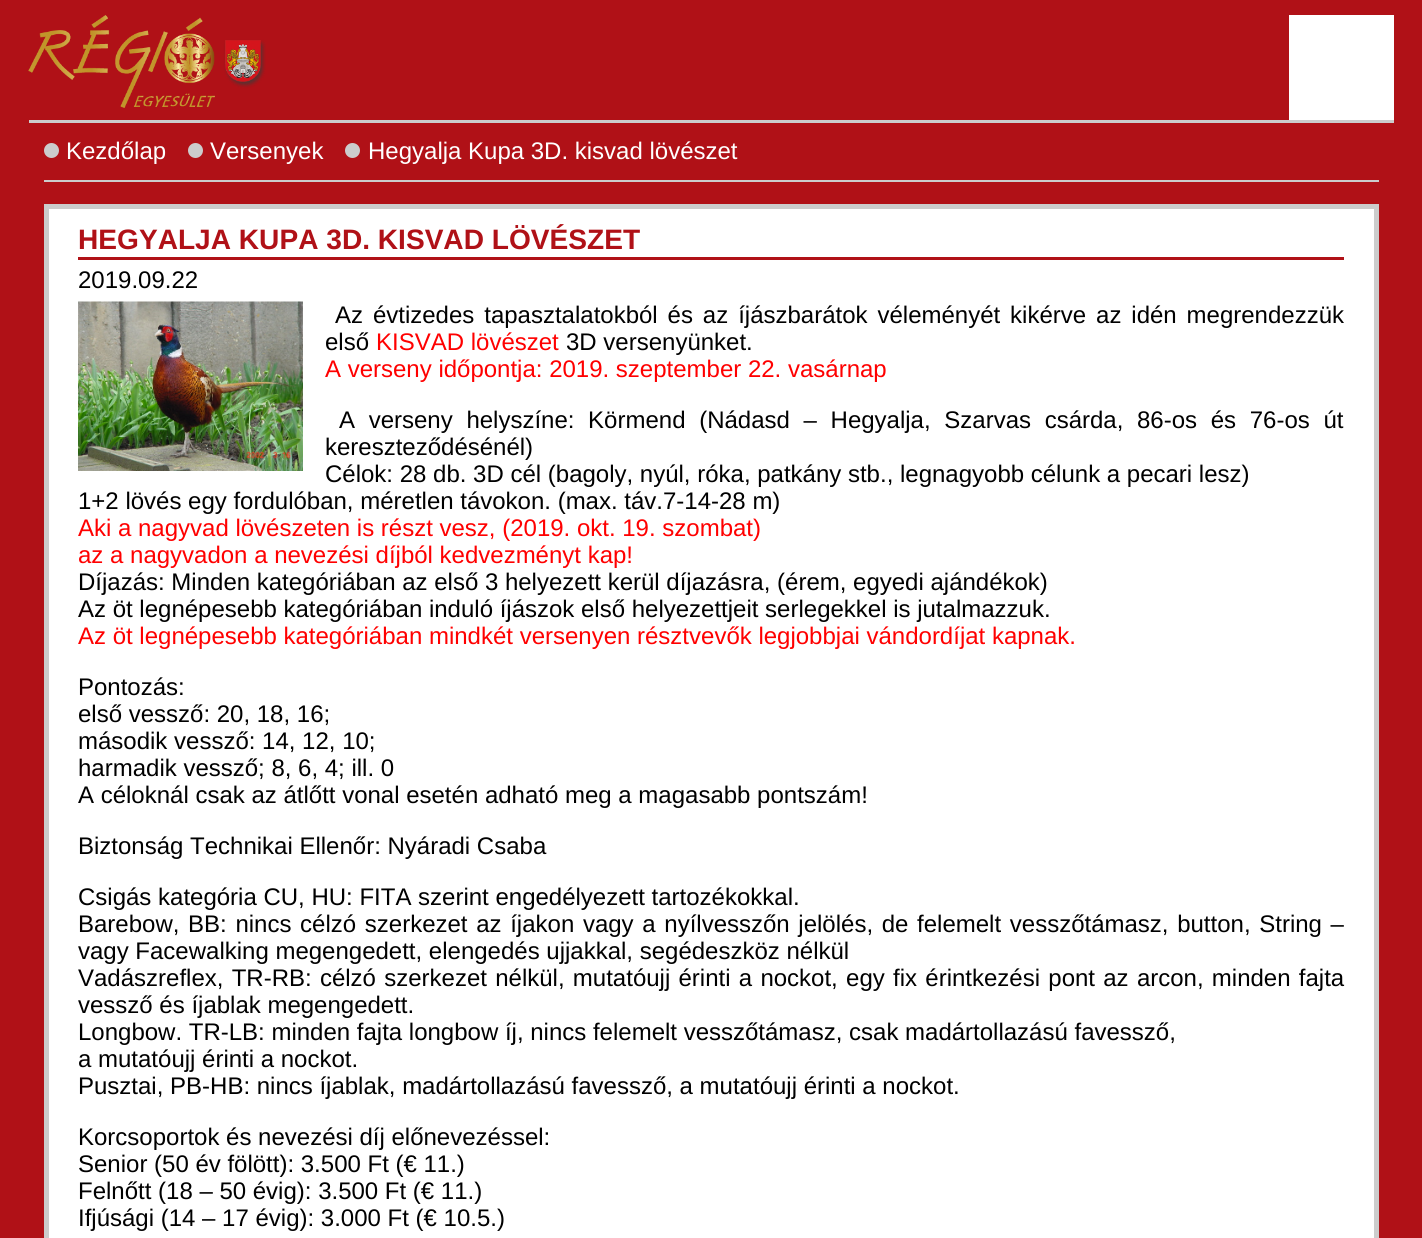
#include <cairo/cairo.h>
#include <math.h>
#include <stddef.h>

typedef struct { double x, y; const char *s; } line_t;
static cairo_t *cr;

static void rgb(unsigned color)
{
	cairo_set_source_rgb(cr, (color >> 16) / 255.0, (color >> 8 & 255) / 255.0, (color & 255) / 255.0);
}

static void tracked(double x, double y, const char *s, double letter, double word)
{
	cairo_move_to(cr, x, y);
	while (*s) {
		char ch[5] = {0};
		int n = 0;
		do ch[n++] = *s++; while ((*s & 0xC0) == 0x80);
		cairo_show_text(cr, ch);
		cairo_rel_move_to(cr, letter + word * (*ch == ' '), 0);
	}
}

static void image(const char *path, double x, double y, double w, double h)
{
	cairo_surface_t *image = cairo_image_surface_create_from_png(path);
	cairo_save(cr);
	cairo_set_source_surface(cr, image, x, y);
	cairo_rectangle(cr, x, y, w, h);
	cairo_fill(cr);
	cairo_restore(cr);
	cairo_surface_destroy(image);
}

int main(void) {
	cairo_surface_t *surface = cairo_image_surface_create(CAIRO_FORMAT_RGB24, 1422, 1238);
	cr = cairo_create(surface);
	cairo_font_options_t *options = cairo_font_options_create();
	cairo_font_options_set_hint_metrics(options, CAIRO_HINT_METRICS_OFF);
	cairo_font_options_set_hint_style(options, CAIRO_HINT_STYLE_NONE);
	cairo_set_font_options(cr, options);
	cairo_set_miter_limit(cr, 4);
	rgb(0xb01117);
	cairo_paint(cr);
	rgb(0xcccccc);
	cairo_rectangle(cr, 29, 120, 1365, 3);
	cairo_fill(cr);
	image("img/1.png", 28, 15, 238, 93);
	rgb(0xffffff);
	cairo_rectangle(cr, 1289, 15, 105, 105);
	cairo_fill(cr);
	rgb(0xcccccc);
	cairo_rectangle(cr, 44, 180, 1335, 2);
	cairo_fill(cr);
	cairo_arc(cr, 51.5, 150.5, 7.5, 0, 2 * M_PI);
	cairo_fill(cr);
	cairo_arc(cr, 195.5, 150.5, 7.5, 0, 2 * M_PI);
	cairo_fill(cr);
	cairo_arc(cr, 352.5, 150.5, 7.5, 0, 2 * M_PI);
	cairo_fill(cr);
	rgb(0xffffff);
	cairo_rectangle(cr, 46.5, 206.5, 1330, 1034);
	cairo_fill_preserve(cr);
	rgb(0xcccccc);
	cairo_set_line_width(cr, 5);
	cairo_stroke(cr);
	rgb(0xb01117);
	cairo_rectangle(cr, 78, 257, 1266, 3);
	cairo_fill(cr);
	image("img/2.png", 78, 301, 225, 170);
	cairo_select_font_face(cr, "Liberation Sans", CAIRO_FONT_SLANT_NORMAL, CAIRO_FONT_WEIGHT_NORMAL);
	cairo_set_font_size(cr, 24);
	rgb(0xffffff);
	{
		static const line_t items[] = {
			{66, 159, "Kezdőlap"},
			{210, 159, "Versenyek"},
			{368, 159, "Hegyalja Kupa 3D. kisvad lövészet"},
		};
		for (size_t i = 0; i < sizeof items / sizeof *items; i++) {
			cairo_move_to(cr, items[i].x, items[i].y);
			cairo_show_text(cr, items[i].s);
		}
	}
	cairo_select_font_face(cr, "Liberation Sans", CAIRO_FONT_SLANT_NORMAL, CAIRO_FONT_WEIGHT_BOLD);
	cairo_set_font_size(cr, 28.1);
	rgb(0xb01117);
	cairo_move_to(cr, 78, 249);
	cairo_show_text(cr, "HEGYALJA KUPA 3D. KISVAD LÖVÉSZET");
	cairo_select_font_face(cr, "Liberation Sans", CAIRO_FONT_SLANT_NORMAL, CAIRO_FONT_WEIGHT_NORMAL);
	cairo_set_font_size(cr, 24);
	rgb(0x000000);
	cairo_move_to(cr, 78, 288);
	cairo_show_text(cr, "2019.09.22");
	tracked(335, 323, "Az évtizedes tapasztalatokból és az íjászbarátok véleményét kikérve az idén megrendezzük", 0, 3.25);
	cairo_move_to(cr, 325, 350);
	cairo_show_text(cr, "első");
	rgb(0xff0000);
	cairo_move_to(cr, 376, 350);
	cairo_show_text(cr, "KISVAD lövészet");
	rgb(0x000000);
	cairo_move_to(cr, 566, 350);
	cairo_show_text(cr, "3D versenyünket.");
	rgb(0xff0000);
	cairo_move_to(cr, 325, 377);
	cairo_show_text(cr, "A verseny időpontja: 2019. szeptember 22. vasárnap");
	rgb(0x000000);
	tracked(339, 428, "A verseny helyszíne: Körmend (Nádasd – Hegyalja, Szarvas csárda, 86-os és 76-os út", 0, 7);
	{
		static const line_t items[] = {
			{325, 455, "kereszteződésénél)"},
			{325, 482, "Célok: 28 db. 3D cél (bagoly, nyúl, róka, patkány stb., legnagyobb célunk a pecari lesz)"},
			{78, 509, "1+2 lövés egy fordulóban, méretlen távokon. (max. táv.7-14-28 m)"},
		};
		for (size_t i = 0; i < sizeof items / sizeof *items; i++) {
			cairo_move_to(cr, items[i].x, items[i].y);
			cairo_show_text(cr, items[i].s);
		}
	}
	rgb(0xff0000);
	cairo_move_to(cr, 78, 536);
	cairo_show_text(cr, "Aki a nagyvad lövészeten is részt vesz, (2019. okt. 19. szombat)");
	cairo_move_to(cr, 78, 563);
	cairo_show_text(cr, "az a nagyvadon a nevezési díjból kedvezményt kap!");
	rgb(0x000000);
	cairo_move_to(cr, 78, 590);
	cairo_show_text(cr, "Díjazás: Minden kategóriában az első 3 helyezett kerül díjazásra, (érem, egyedi ajándékok)");
	cairo_move_to(cr, 78, 617);
	cairo_show_text(cr, "Az öt legnépesebb kategóriában induló íjászok első helyezettjeit serlegekkel is jutalmazzuk.");
	rgb(0xff0000);
	cairo_move_to(cr, 78, 644);
	cairo_show_text(cr, "Az öt legnépesebb kategóriában mindkét versenyen résztvevők legjobbjai vándordíjat kapnak.");
	rgb(0x000000);
	{
		static const line_t items[] = {
			{78, 695, "Pontozás:"},
			{78, 722, "első vessző: 20, 18, 16;"},
			{78, 749, "második vessző: 14, 12, 10;"},
			{78, 776, "harmadik vessző; 8, 6, 4; ill. 0"},
			{78, 803, "A céloknál csak az átlőtt vonal esetén adható meg a magasabb pontszám!"},
			{78, 854, "Biztonság Technikai Ellenőr: Nyáradi Csaba"},
			{78, 905, "Csigás kategória CU, HU: FITA szerint engedélyezett tartozékokkal."},
		};
		for (size_t i = 0; i < sizeof items / sizeof *items; i++) {
			cairo_move_to(cr, items[i].x, items[i].y);
			cairo_show_text(cr, items[i].s);
		}
	}
	tracked(78, 932, "Barebow, BB: nincs célzó szerkezet az íjakon vagy a nyílvesszőn jelölés, de felemelt vesszőtámasz, button, String –", 0, 2);
	cairo_move_to(cr, 78, 959);
	cairo_show_text(cr, "vagy Facewalking megengedett, elengedés ujjakkal, segédeszköz nélkül");
	tracked(78, 986, "Vadászreflex, TR-RB: célzó szerkezet nélkül, mutatóujj érinti a nockot, egy fix érintkezési pont az arcon, minden fajta", 0, 1.6);
	{
		static const line_t items[] = {
			{78, 1013, "vessző és íjablak megengedett."},
			{78, 1040, "Longbow. TR-LB: minden fajta longbow íj, nincs felemelt vesszőtámasz, csak madártollazású favessző,"},
			{78, 1067, "a mutatóujj érinti a nockot."},
			{78, 1094, "Pusztai, PB-HB: nincs íjablak, madártollazású favessző, a mutatóujj érinti a nockot."},
			{78, 1145, "Korcsoportok és nevezési díj előnevezéssel:"},
			{78, 1172, "Senior (50 év fölött): 3.500 Ft (€ 11.)"},
			{78, 1199, "Felnőtt (18 – 50 évig): 3.500 Ft (€ 11.)"},
			{78, 1226, "Ifjúsági (14 – 17 évig): 3.000 Ft (€ 10.5.)"},
		};
		for (size_t i = 0; i < sizeof items / sizeof *items; i++) {
			cairo_move_to(cr, items[i].x, items[i].y);
			cairo_show_text(cr, items[i].s);
		}
	}
	cairo_surface_write_to_png(surface, "page.png");
	cairo_font_options_destroy(options);
	cairo_destroy(cr);
	cairo_surface_destroy(surface);
	return 0;
}
